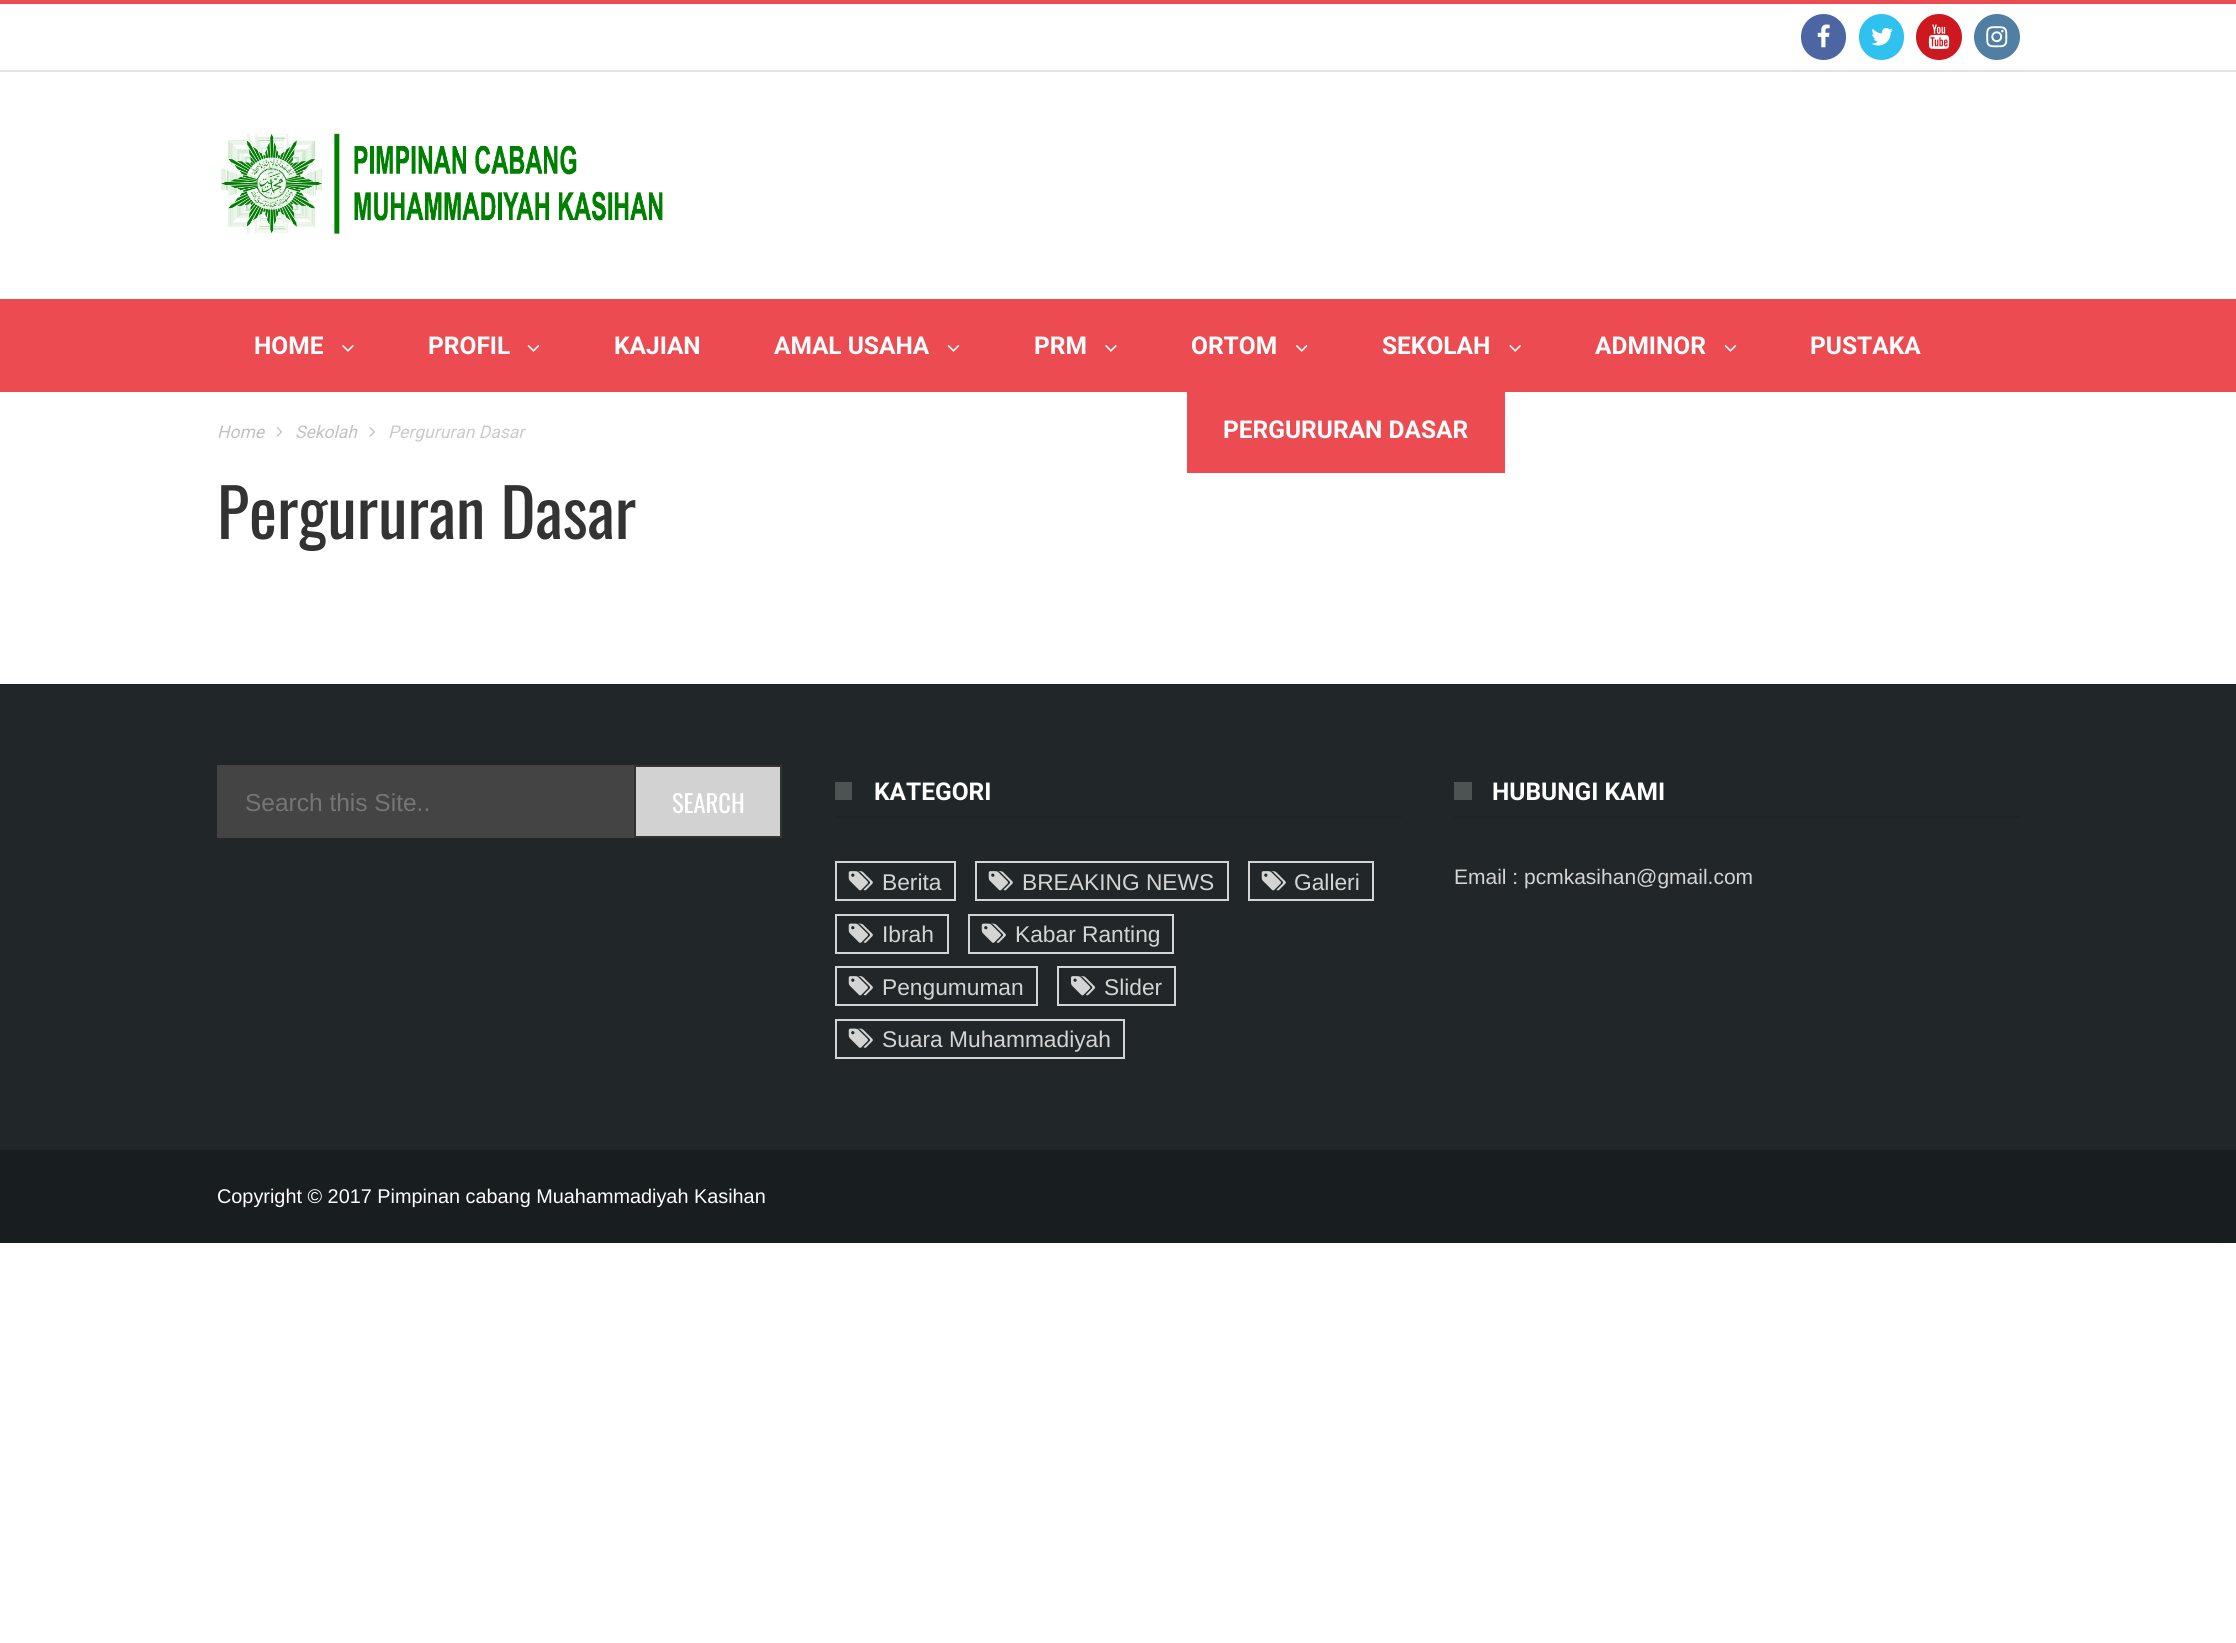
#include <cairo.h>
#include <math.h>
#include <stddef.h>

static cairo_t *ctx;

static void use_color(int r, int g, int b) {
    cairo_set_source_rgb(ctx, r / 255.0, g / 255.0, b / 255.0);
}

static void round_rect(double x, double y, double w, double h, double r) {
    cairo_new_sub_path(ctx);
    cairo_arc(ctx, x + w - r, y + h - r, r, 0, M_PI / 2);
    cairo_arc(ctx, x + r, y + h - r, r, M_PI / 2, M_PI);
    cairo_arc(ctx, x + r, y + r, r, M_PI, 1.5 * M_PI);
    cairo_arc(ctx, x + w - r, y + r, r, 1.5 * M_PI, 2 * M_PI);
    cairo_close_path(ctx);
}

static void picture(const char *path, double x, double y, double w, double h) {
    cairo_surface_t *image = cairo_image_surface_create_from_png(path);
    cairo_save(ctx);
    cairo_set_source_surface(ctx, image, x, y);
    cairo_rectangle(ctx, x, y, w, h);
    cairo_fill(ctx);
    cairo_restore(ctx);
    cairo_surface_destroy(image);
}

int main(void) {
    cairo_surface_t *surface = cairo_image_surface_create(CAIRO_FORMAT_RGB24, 2236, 1643);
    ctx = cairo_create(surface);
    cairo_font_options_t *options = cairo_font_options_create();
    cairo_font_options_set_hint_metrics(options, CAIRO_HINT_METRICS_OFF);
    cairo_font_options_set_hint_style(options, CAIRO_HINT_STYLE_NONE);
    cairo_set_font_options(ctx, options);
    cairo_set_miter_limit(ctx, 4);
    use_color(255, 255, 255);
    cairo_paint(ctx);
    use_color(236, 76, 81);
    cairo_rectangle(ctx, 0, 0, 2236, 4);
    cairo_fill(ctx);
    use_color(226, 226, 226);
    cairo_rectangle(ctx, 0, 70, 2236, 2);
    cairo_fill(ctx);
    use_color(76, 102, 164);
    round_rect(1801, 14, 45, 46, 22.5);
    cairo_fill(ctx);
    picture("img1.png", 1817, 24, 13, 24);
    use_color(47, 194, 239);
    round_rect(1859, 14, 45, 46, 22.5);
    cairo_fill(ctx);
    picture("img2.png", 1871, 28, 22, 18);
    use_color(204, 24, 30);
    cairo_arc(ctx, 1939, 37, 23, 0, 2 * M_PI);
    cairo_fill(ctx);
    picture("img3.png", 1928, 24, 22, 25);
    use_color(81, 127, 164);
    cairo_arc(ctx, 1997, 37, 23, 0, 2 * M_PI);
    cairo_fill(ctx);
    picture("img4.png", 1986, 26, 22, 22);
    picture("img5.png", 221, 133, 442, 101);
    use_color(236, 76, 81);
    cairo_rectangle(ctx, 0, 299, 2236, 93);
    cairo_fill(ctx);
    cairo_select_font_face(ctx, "Roboto", CAIRO_FONT_SLANT_NORMAL, CAIRO_FONT_WEIGHT_BOLD);
    cairo_set_font_size(ctx, 24.5);
    use_color(255, 255, 255);
    cairo_move_to(ctx, 254, 354);
    cairo_show_text(ctx, "HOME");
    picture("img6.png", 342, 345, 12, 7);
    cairo_move_to(ctx, 428, 354);
    cairo_show_text(ctx, "PROFIL");
    picture("img7.png", 527, 345, 13, 7);
    cairo_move_to(ctx, 614, 354);
    cairo_show_text(ctx, "KAJIAN");
    cairo_move_to(ctx, 774, 354);
    cairo_show_text(ctx, "AMAL USAHA");
    picture("img7.png", 947, 345, 13, 7);
    cairo_move_to(ctx, 1034, 354);
    cairo_show_text(ctx, "PRM");
    picture("img6.png", 1105, 345, 12, 7);
    cairo_move_to(ctx, 1191, 354);
    cairo_show_text(ctx, "ORTOM");
    picture("img8.png", 1296, 345, 12, 7);
    cairo_move_to(ctx, 1382, 354);
    cairo_show_text(ctx, "SEKOLAH");
    picture("img9.png", 1509, 345, 12, 7);
    cairo_move_to(ctx, 1595, 354);
    cairo_show_text(ctx, "ADMINOR");
    picture("img7.png", 1724, 345, 13, 7);
    cairo_move_to(ctx, 1810, 354);
    cairo_show_text(ctx, "PUSTAKA");
    use_color(236, 76, 81);
    cairo_rectangle(ctx, 1187, 392, 318, 81);
    cairo_fill(ctx);
    use_color(255, 255, 255);
    cairo_move_to(ctx, 1223, 438);
    cairo_show_text(ctx, "PERGURURAN DASAR");
    cairo_select_font_face(ctx, "Roboto", CAIRO_FONT_SLANT_ITALIC, CAIRO_FONT_WEIGHT_NORMAL);
    cairo_set_font_size(ctx, 17.5);
    use_color(194, 194, 194);
    cairo_move_to(ctx, 217, 438);
    cairo_show_text(ctx, "Home");
    picture("img10.png", 276, 427, 7, 10);
    cairo_move_to(ctx, 295, 438);
    cairo_show_text(ctx, "Sekolah");
    picture("img11.png", 369, 427, 6, 10);
    use_color(203, 203, 203);
    cairo_move_to(ctx, 388, 438);
    cairo_show_text(ctx, "Pergururan Dasar");
    cairo_select_font_face(ctx, "Oswald", CAIRO_FONT_SLANT_NORMAL, CAIRO_FONT_WEIGHT_NORMAL);
    cairo_set_font_size(ctx, 66.5);
    use_color(51, 51, 51);
    cairo_move_to(ctx, 217, 539);
    cairo_show_text(ctx, "Pergururan Dasar");
    use_color(33, 39, 40);
    cairo_rectangle(ctx, 0, 686, 2236, 464);
    cairo_fill(ctx);
    use_color(30, 35, 36);
    cairo_rectangle(ctx, 0, 684, 2236, 2);
    cairo_fill(ctx);
    use_color(68, 68, 68);
    cairo_rectangle(ctx, 217, 765, 417, 73);
    cairo_fill(ctx);
    cairo_select_font_face(ctx, "Liberation Sans", CAIRO_FONT_SLANT_NORMAL, CAIRO_FONT_WEIGHT_NORMAL);
    cairo_set_font_size(ctx, 24.5);
    use_color(117, 117, 117);
    cairo_move_to(ctx, 245, 811);
    cairo_show_text(ctx, "Search this Site..");
    use_color(210, 210, 210);
    cairo_rectangle(ctx, 635, 766, 146, 71);
    cairo_fill_preserve(ctx);
    use_color(51, 51, 51);
    cairo_stroke(ctx);
    cairo_select_font_face(ctx, "Oswald", CAIRO_FONT_SLANT_NORMAL, CAIRO_FONT_WEIGHT_NORMAL);
    use_color(255, 255, 255);
    cairo_move_to(ctx, 672, 813);
    cairo_show_text(ctx, "SEARCH");
    use_color(30, 36, 37);
    cairo_rectangle(ctx, 835, 816, 567, 2);
    cairo_fill(ctx);
    use_color(77, 82, 83);
    cairo_rectangle(ctx, 835, 782, 17, 18);
    cairo_fill(ctx);
    cairo_select_font_face(ctx, "Roboto", CAIRO_FONT_SLANT_NORMAL, CAIRO_FONT_WEIGHT_BOLD);
    use_color(255, 255, 255);
    cairo_move_to(ctx, 874, 800);
    cairo_show_text(ctx, "KATEGORI");
    cairo_rectangle(ctx, 836, 862, 119, 38);
    use_color(211, 212, 212);
    cairo_stroke(ctx);
    picture("img12.png", 848, 871, 25, 20);
    cairo_select_font_face(ctx, "Liberation Sans", CAIRO_FONT_SLANT_NORMAL, CAIRO_FONT_WEIGHT_NORMAL);
    cairo_set_font_size(ctx, 22.75);
    cairo_move_to(ctx, 882, 890);
    cairo_show_text(ctx, "Berita");
    cairo_rectangle(ctx, 976, 862, 252, 38);
    cairo_stroke(ctx);
    picture("img13.png", 988, 871, 25, 20);
    cairo_move_to(ctx, 1022, 890);
    cairo_show_text(ctx, "BREAKING NEWS");
    cairo_rectangle(ctx, 1249, 862, 124, 38);
    cairo_stroke(ctx);
    picture("img12.png", 1261, 871, 25, 20);
    cairo_move_to(ctx, 1294, 890);
    cairo_show_text(ctx, "Galleri");
    cairo_rectangle(ctx, 836, 915, 112, 38);
    cairo_stroke(ctx);
    picture("img14.png", 848, 923, 25, 20);
    cairo_move_to(ctx, 882, 942);
    cairo_show_text(ctx, "Ibrah");
    cairo_rectangle(ctx, 969, 915, 204, 38);
    cairo_stroke(ctx);
    picture("img15.png", 981, 923, 25, 20);
    cairo_move_to(ctx, 1015, 942);
    cairo_show_text(ctx, "Kabar Ranting");
    cairo_rectangle(ctx, 836, 967, 201, 38);
    cairo_stroke(ctx);
    picture("img12.png", 848, 976, 25, 20);
    cairo_move_to(ctx, 882, 995);
    cairo_show_text(ctx, "Pengumuman");
    cairo_rectangle(ctx, 1058, 967, 117, 38);
    cairo_stroke(ctx);
    picture("img16.png", 1071, 976, 25, 20);
    cairo_move_to(ctx, 1104, 995);
    cairo_show_text(ctx, "Slider");
    cairo_rectangle(ctx, 836, 1020, 288, 38);
    cairo_stroke(ctx);
    picture("img14.png", 848, 1028, 25, 20);
    cairo_move_to(ctx, 882, 1047);
    cairo_show_text(ctx, "Suara Muhammadiyah");
    use_color(30, 36, 37);
    cairo_rectangle(ctx, 1454, 816, 566, 2);
    cairo_fill(ctx);
    use_color(77, 82, 83);
    cairo_rectangle(ctx, 1454, 782, 18, 18);
    cairo_fill(ctx);
    cairo_select_font_face(ctx, "Roboto", CAIRO_FONT_SLANT_NORMAL, CAIRO_FONT_WEIGHT_BOLD);
    cairo_set_font_size(ctx, 24.5);
    use_color(255, 255, 255);
    cairo_move_to(ctx, 1492, 800);
    cairo_show_text(ctx, "HUBUNGI KAMI");
    cairo_select_font_face(ctx, "Liberation Sans", CAIRO_FONT_SLANT_NORMAL, CAIRO_FONT_WEIGHT_NORMAL);
    cairo_set_font_size(ctx, 21);
    use_color(211, 212, 212);
    cairo_move_to(ctx, 1454, 884);
    cairo_show_text(ctx, "Email : pcmkasihan@gmail.com");
    use_color(24, 29, 31);
    cairo_rectangle(ctx, 0, 1150, 2236, 93);
    cairo_fill(ctx);
    cairo_set_font_size(ctx, 19.85);
    use_color(255, 255, 255);
    cairo_move_to(ctx, 217, 1203);
    cairo_show_text(ctx, "Copyright © 2017 Pimpinan cabang Muahammadiyah Kasihan");
    cairo_surface_write_to_png(surface, "result.png");
    cairo_font_options_destroy(options);
    cairo_destroy(ctx);
    cairo_surface_destroy(surface);
    return 0;
}
